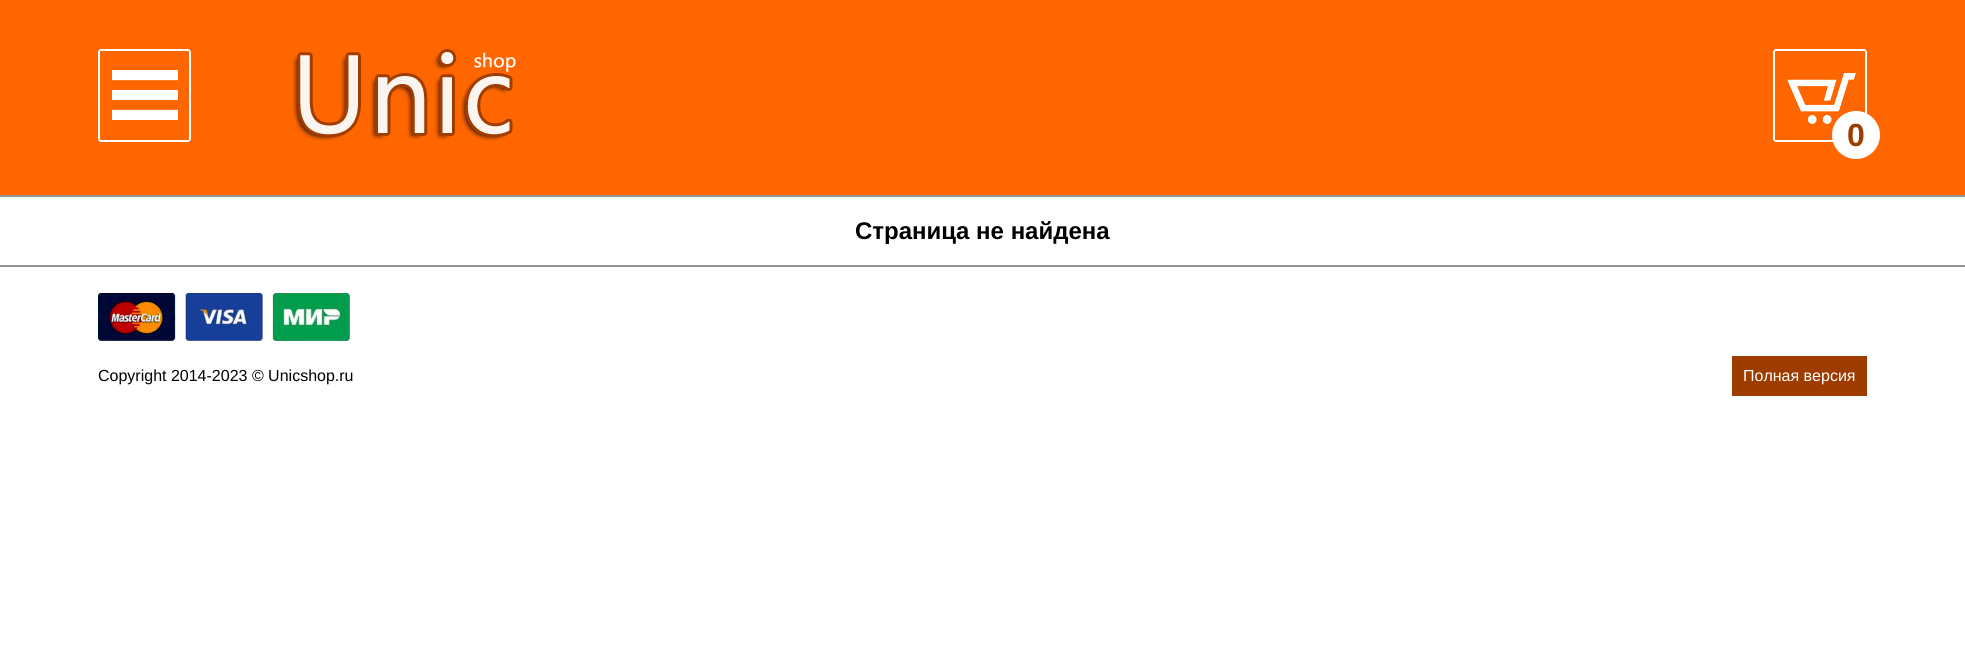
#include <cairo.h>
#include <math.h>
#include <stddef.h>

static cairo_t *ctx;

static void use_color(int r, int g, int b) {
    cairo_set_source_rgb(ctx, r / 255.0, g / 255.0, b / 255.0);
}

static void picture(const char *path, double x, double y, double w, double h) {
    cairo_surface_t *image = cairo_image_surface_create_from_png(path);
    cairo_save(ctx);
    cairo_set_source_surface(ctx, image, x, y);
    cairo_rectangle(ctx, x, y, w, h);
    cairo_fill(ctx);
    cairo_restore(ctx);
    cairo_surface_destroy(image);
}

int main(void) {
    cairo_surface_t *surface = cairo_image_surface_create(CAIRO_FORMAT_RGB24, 1965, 654);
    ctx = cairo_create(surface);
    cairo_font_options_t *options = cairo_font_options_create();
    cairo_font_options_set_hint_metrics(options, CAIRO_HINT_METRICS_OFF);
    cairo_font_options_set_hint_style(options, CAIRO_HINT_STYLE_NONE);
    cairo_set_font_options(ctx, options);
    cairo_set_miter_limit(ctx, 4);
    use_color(255, 255, 255);
    cairo_paint(ctx);
    use_color(255, 102, 0);
    cairo_rectangle(ctx, 0, 0, 1965, 195);
    cairo_fill(ctx);
    use_color(147, 148, 150);
    cairo_rectangle(ctx, 0, 195, 1965, 2);
    cairo_fill(ctx);
    picture("img1.png", 98, 49, 93, 93);
    picture("img2.png", 292, 49, 224, 92);
    picture("img3.png", 1773, 49, 94, 93);
    use_color(255, 255, 255);
    cairo_arc(ctx, 1856, 135, 24, 0, 2 * M_PI);
    cairo_fill(ctx);
    cairo_select_font_face(ctx, "Liberation Sans", CAIRO_FONT_SLANT_NORMAL, CAIRO_FONT_WEIGHT_BOLD);
    cairo_set_font_size(ctx, 32);
    use_color(158, 60, 0);
    cairo_move_to(ctx, 1847, 146);
    cairo_show_text(ctx, "0");
    cairo_set_font_size(ctx, 24);
    use_color(0, 0, 0);
    cairo_move_to(ctx, 855, 239);
    cairo_show_text(ctx, "Страница не найдена");
    use_color(147, 148, 150);
    cairo_rectangle(ctx, 0, 265, 1965, 2);
    cairo_fill(ctx);
    picture("img4.png", 98, 293, 252, 48);
    cairo_select_font_face(ctx, "Liberation Sans", CAIRO_FONT_SLANT_NORMAL, CAIRO_FONT_WEIGHT_NORMAL);
    cairo_set_font_size(ctx, 16);
    use_color(0, 0, 0);
    cairo_move_to(ctx, 98, 381);
    cairo_show_text(ctx, "Copyright 2014-2023 © Unicshop.ru");
    use_color(158, 60, 0);
    cairo_rectangle(ctx, 1732, 356, 135, 40);
    cairo_fill(ctx);
    use_color(255, 255, 255);
    cairo_move_to(ctx, 1743, 381);
    cairo_show_text(ctx, "Полная версия");
    cairo_surface_write_to_png(surface, "result.png");
    cairo_font_options_destroy(options);
    cairo_destroy(ctx);
    cairo_surface_destroy(surface);
    return 0;
}
